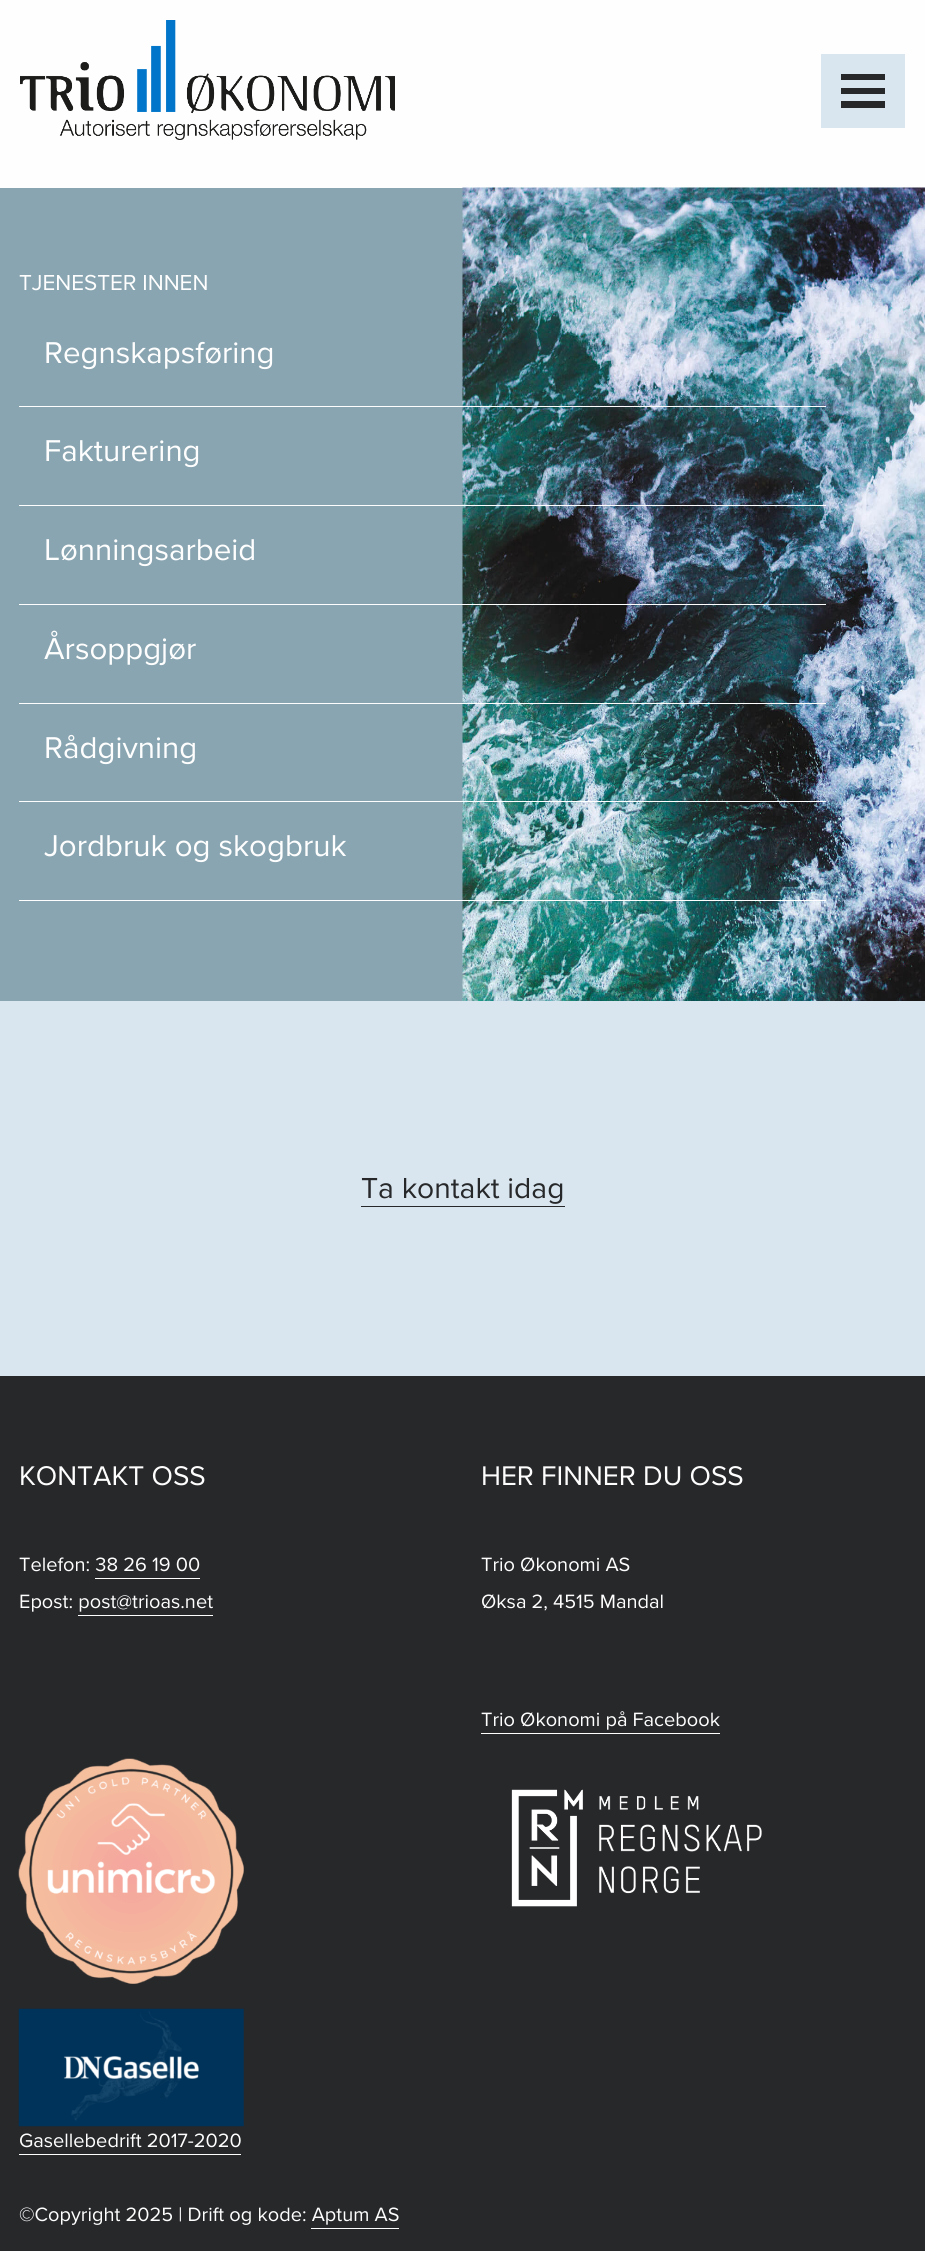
#include <cairo.h>
#include <math.h>
#include <stddef.h>

static cairo_t *ctx;

static void use_color(int r, int g, int b) {
    cairo_set_source_rgb(ctx, r / 255.0, g / 255.0, b / 255.0);
}

static void picture(const char *path, double x, double y, double w, double h) {
    cairo_surface_t *image = cairo_image_surface_create_from_png(path);
    cairo_save(ctx);
    cairo_set_source_surface(ctx, image, x, y);
    cairo_rectangle(ctx, x, y, w, h);
    cairo_fill(ctx);
    cairo_restore(ctx);
    cairo_surface_destroy(image);
}

int main(void) {
    cairo_surface_t *surface = cairo_image_surface_create(CAIRO_FORMAT_RGB24, 925, 2251);
    ctx = cairo_create(surface);
    cairo_font_options_t *options = cairo_font_options_create();
    cairo_font_options_set_hint_metrics(options, CAIRO_HINT_METRICS_OFF);
    cairo_font_options_set_hint_style(options, CAIRO_HINT_STYLE_NONE);
    cairo_set_font_options(ctx, options);
    cairo_set_miter_limit(ctx, 4);
    use_color(254, 254, 254);
    cairo_paint(ctx);
    picture("img1.png", 20, 20, 375, 120);
    use_color(217, 230, 239);
    cairo_rectangle(ctx, 821, 54, 84, 74);
    cairo_fill(ctx);
    use_color(39, 40, 42);
    cairo_rectangle(ctx, 841, 74, 44, 6);
    cairo_fill(ctx);
    cairo_rectangle(ctx, 841, 88, 44, 6);
    cairo_fill(ctx);
    cairo_rectangle(ctx, 841, 101, 44, 7);
    cairo_fill(ctx);
    use_color(137, 165, 177);
    cairo_rectangle(ctx, 0, 188, 463, 813);
    cairo_fill(ctx);
    picture("img2.png", 462, 187, 463, 814);
    cairo_select_font_face(ctx, "Proxima Nova", CAIRO_FONT_SLANT_NORMAL, CAIRO_FONT_WEIGHT_NORMAL);
    cairo_set_font_size(ctx, 22.5);
    use_color(254, 254, 254);
    cairo_move_to(ctx, 19, 290);
    cairo_show_text(ctx, "TJENESTER INNEN");
    cairo_rectangle(ctx, 19, 406, 807, 1);
    cairo_fill(ctx);
    cairo_set_font_size(ctx, 31.25);
    cairo_move_to(ctx, 44, 363);
    cairo_show_text(ctx, "Regnskapsføring");
    cairo_rectangle(ctx, 19, 505, 807, 1);
    cairo_fill(ctx);
    cairo_move_to(ctx, 44, 461);
    cairo_show_text(ctx, "Fakturering");
    cairo_rectangle(ctx, 19, 604, 807, 1);
    cairo_fill(ctx);
    cairo_move_to(ctx, 44, 560);
    cairo_show_text(ctx, "Lønningsarbeid");
    cairo_rectangle(ctx, 19, 703, 807, 1);
    cairo_fill(ctx);
    cairo_move_to(ctx, 44, 659);
    cairo_show_text(ctx, "Årsoppgjør");
    cairo_rectangle(ctx, 19, 801, 807, 1);
    cairo_fill(ctx);
    cairo_move_to(ctx, 44, 758);
    cairo_show_text(ctx, "Rådgivning");
    cairo_rectangle(ctx, 19, 900, 807, 1);
    cairo_fill(ctx);
    cairo_move_to(ctx, 44, 856);
    cairo_show_text(ctx, "Jordbruk og skogbruk");
    use_color(217, 230, 239);
    cairo_rectangle(ctx, 0, 1001, 925, 375);
    cairo_fill(ctx);
    cairo_set_font_size(ctx, 30);
    use_color(39, 40, 42);
    cairo_move_to(ctx, 361, 1198);
    cairo_show_text(ctx, "Ta kontakt idag");
    cairo_rectangle(ctx, 361, 1206, 204, 1);
    cairo_fill(ctx);
    cairo_rectangle(ctx, 0, 1376, 925, 875);
    cairo_fill(ctx);
    cairo_set_font_size(ctx, 28);
    use_color(254, 254, 254);
    cairo_move_to(ctx, 19, 1485);
    cairo_show_text(ctx, "KONTAKT OSS");
    cairo_set_font_size(ctx, 20);
    cairo_move_to(ctx, 19, 1571);
    cairo_show_text(ctx, "Telefon: 38 26 19 00");
    cairo_rectangle(ctx, 95, 1578, 105, 1);
    cairo_fill(ctx);
    cairo_move_to(ctx, 19, 1608);
    cairo_show_text(ctx, "Epost: post@trioas.net");
    cairo_rectangle(ctx, 78, 1615, 135, 1);
    cairo_fill(ctx);
    cairo_set_font_size(ctx, 28);
    cairo_move_to(ctx, 481, 1485);
    cairo_show_text(ctx, "HER FINNER DU OSS");
    cairo_set_font_size(ctx, 20);
    cairo_move_to(ctx, 481, 1571);
    cairo_show_text(ctx, "Trio Økonomi AS");
    cairo_move_to(ctx, 481, 1608);
    cairo_show_text(ctx, "Øksa 2, 4515 Mandal");
    cairo_move_to(ctx, 481, 1726);
    cairo_show_text(ctx, "Trio Økonomi på Facebook");
    cairo_rectangle(ctx, 481, 1733, 239, 1);
    cairo_fill(ctx);
    picture("img3.png", 511, 1789, 251, 118);
    picture("img4.png", 18, 1758, 226, 226);
    picture("img5.png", 18, 2008, 226, 119);
    cairo_move_to(ctx, 19, 2147);
    cairo_show_text(ctx, "Gasellebedrift 2017-2020");
    cairo_rectangle(ctx, 19, 2154, 222, 1);
    cairo_fill(ctx);
    cairo_move_to(ctx, 19, 2221);
    cairo_show_text(ctx, "©Copyright 2025 | Drift og kode: Aptum AS");
    cairo_rectangle(ctx, 311, 2228, 88, 1);
    cairo_fill(ctx);
    cairo_surface_write_to_png(surface, "result.png");
    cairo_font_options_destroy(options);
    cairo_destroy(ctx);
    cairo_surface_destroy(surface);
    return 0;
}
